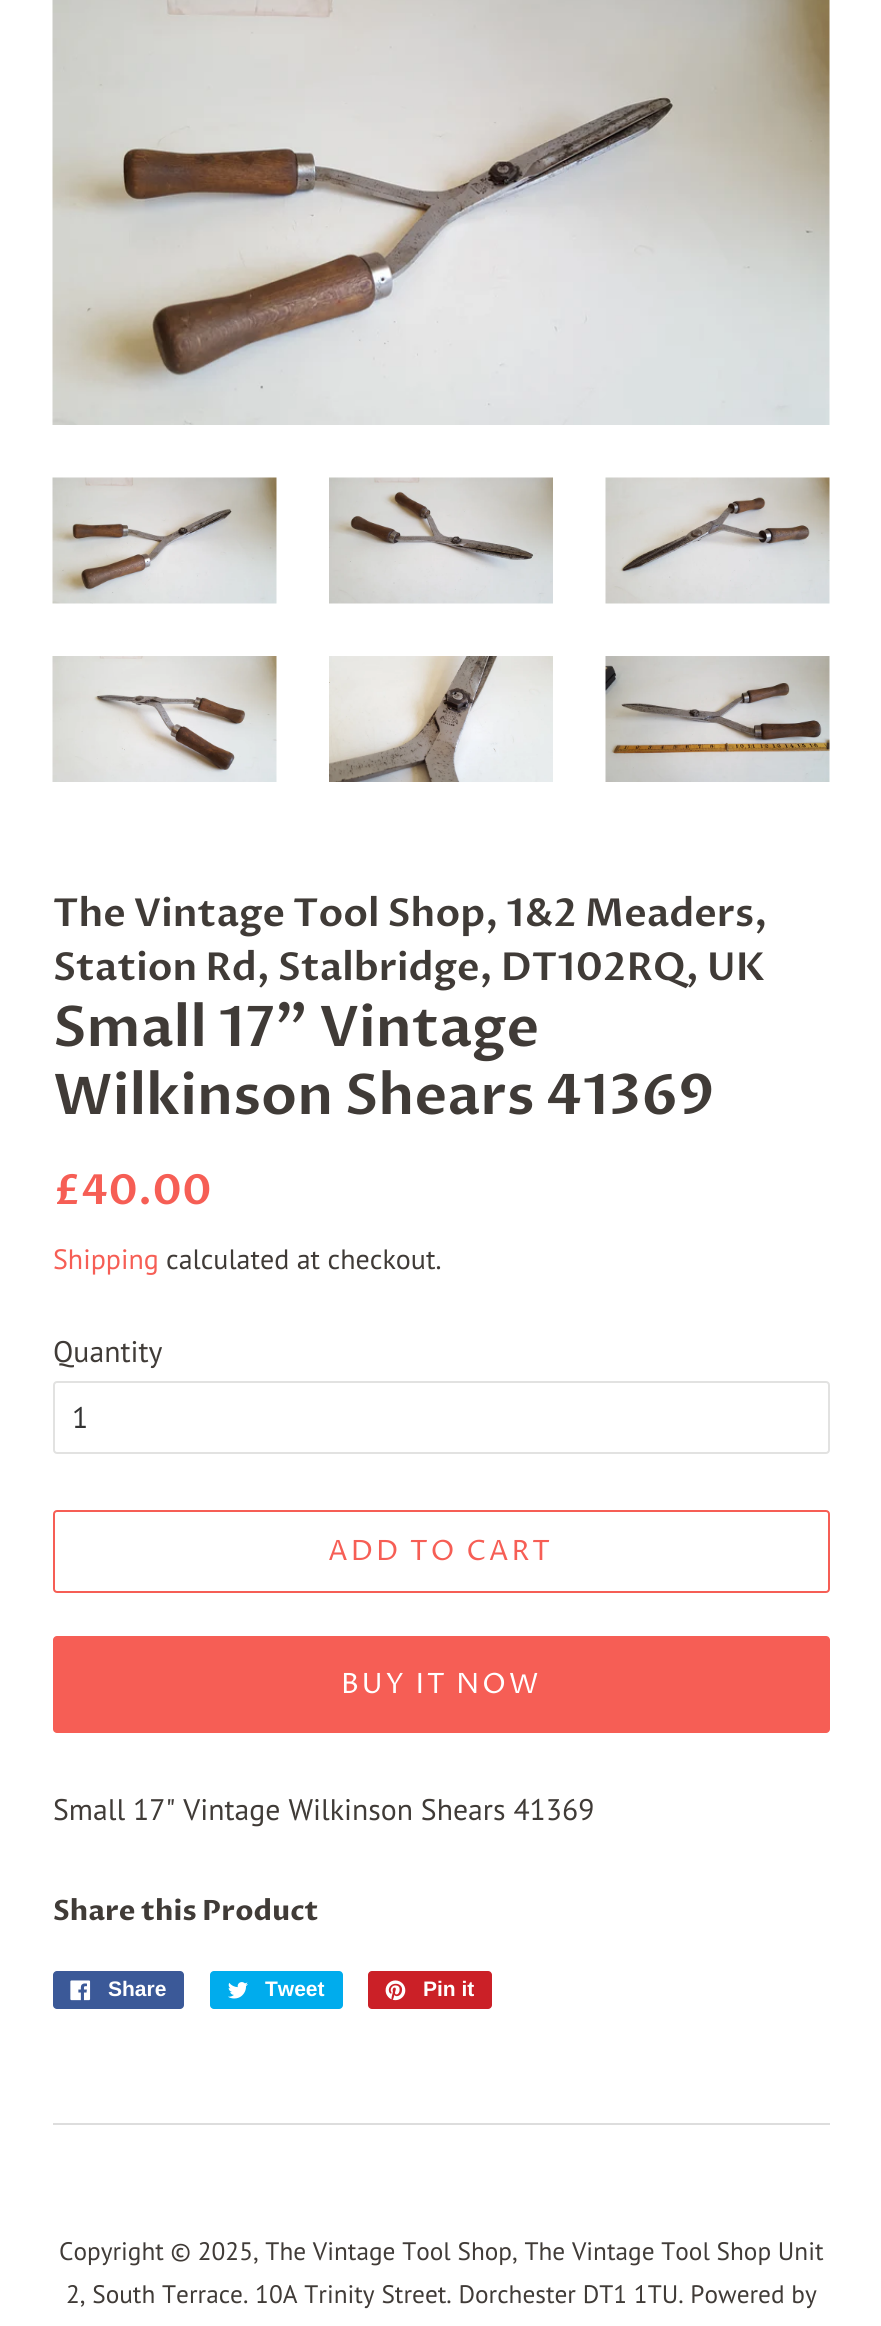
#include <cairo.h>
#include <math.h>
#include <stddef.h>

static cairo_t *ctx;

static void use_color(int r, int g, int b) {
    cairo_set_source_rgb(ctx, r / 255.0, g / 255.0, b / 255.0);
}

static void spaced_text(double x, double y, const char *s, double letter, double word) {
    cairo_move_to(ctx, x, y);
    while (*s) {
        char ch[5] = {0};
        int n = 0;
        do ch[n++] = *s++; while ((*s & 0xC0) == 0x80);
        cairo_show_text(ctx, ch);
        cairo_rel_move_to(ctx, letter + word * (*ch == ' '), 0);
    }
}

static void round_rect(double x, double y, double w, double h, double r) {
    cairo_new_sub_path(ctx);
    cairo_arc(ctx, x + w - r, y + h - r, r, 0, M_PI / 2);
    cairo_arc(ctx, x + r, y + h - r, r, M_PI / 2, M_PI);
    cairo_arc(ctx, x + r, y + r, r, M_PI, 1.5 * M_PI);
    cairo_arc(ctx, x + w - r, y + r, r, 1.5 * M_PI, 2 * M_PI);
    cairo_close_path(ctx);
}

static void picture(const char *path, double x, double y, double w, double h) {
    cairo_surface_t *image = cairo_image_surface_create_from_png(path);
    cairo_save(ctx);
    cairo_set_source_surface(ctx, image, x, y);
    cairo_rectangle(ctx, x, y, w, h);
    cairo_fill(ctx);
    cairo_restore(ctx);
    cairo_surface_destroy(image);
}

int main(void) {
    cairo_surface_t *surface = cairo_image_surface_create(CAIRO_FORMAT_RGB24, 881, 2326);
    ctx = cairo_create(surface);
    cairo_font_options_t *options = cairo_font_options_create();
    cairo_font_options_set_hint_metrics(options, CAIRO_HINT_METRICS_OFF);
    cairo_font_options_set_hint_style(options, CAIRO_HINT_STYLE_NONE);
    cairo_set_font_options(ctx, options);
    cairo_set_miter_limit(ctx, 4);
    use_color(255, 255, 255);
    cairo_paint(ctx);
    picture("img1.png", 52, 0, 778, 425);
    picture("img2.png", 52, 477, 225, 127);
    picture("img3.png", 329, 477, 224, 127);
    picture("img4.png", 605, 477, 225, 127);
    picture("img5.png", 52, 656, 225, 126);
    picture("img6.png", 329, 656, 224, 126);
    picture("img7.png", 605, 656, 225, 126);
    cairo_select_font_face(ctx, "Proza Libre SemiBold", CAIRO_FONT_SLANT_NORMAL, CAIRO_FONT_WEIGHT_NORMAL);
    cairo_set_font_size(ctx, 38.5);
    use_color(64, 59, 55);
    cairo_move_to(ctx, 53, 926);
    cairo_show_text(ctx, "The Vintage Tool Shop, 1&2 Meaders,");
    cairo_move_to(ctx, 53, 980);
    cairo_show_text(ctx, "Station Rd, Stalbridge, DT102RQ, UK");
    cairo_set_font_size(ctx, 56);
    cairo_move_to(ctx, 53, 1046);
    cairo_show_text(ctx, "Small 17\" Vintage");
    cairo_move_to(ctx, 53, 1114);
    cairo_show_text(ctx, "Wilkinson Shears 41369");
    cairo_set_font_size(ctx, 41.5);
    use_color(246, 94, 85);
    cairo_move_to(ctx, 53, 1204);
    cairo_show_text(ctx, "£40.00");
    cairo_select_font_face(ctx, "PT Sans", CAIRO_FONT_SLANT_NORMAL, CAIRO_FONT_WEIGHT_NORMAL);
    cairo_set_font_size(ctx, 28);
    cairo_move_to(ctx, 53, 1269);
    cairo_show_text(ctx, "Shipping");
    use_color(64, 59, 55);
    cairo_move_to(ctx, 166, 1269);
    cairo_show_text(ctx, "calculated at checkout.");
    cairo_set_font_size(ctx, 29.75);
    cairo_move_to(ctx, 53, 1362);
    cairo_show_text(ctx, "Quantity");
    round_rect(54, 1382, 775, 71, 3);
    use_color(226, 226, 225);
    cairo_stroke(ctx);
    use_color(51, 51, 51);
    cairo_move_to(ctx, 72, 1428);
    cairo_show_text(ctx, "1");
    round_rect(54, 1511, 775, 81, 3);
    use_color(246, 94, 85);
    cairo_stroke(ctx);
    cairo_select_font_face(ctx, "Proza Libre", CAIRO_FONT_SLANT_NORMAL, CAIRO_FONT_WEIGHT_NORMAL);
    cairo_set_font_size(ctx, 28);
    spaced_text(328, 1560, "ADD TO CART", 2.75, 0);
    round_rect(53, 1636, 777, 97, 4);
    cairo_fill(ctx);
    use_color(255, 255, 255);
    spaced_text(341, 1693, "BUY IT NOW", 2.75, 0);
    cairo_select_font_face(ctx, "PT Sans", CAIRO_FONT_SLANT_NORMAL, CAIRO_FONT_WEIGHT_NORMAL);
    cairo_set_font_size(ctx, 29.75);
    use_color(64, 59, 55);
    cairo_move_to(ctx, 53, 1820);
    cairo_show_text(ctx, "Small 17\" Vintage Wilkinson Shears 41369");
    cairo_select_font_face(ctx, "Proza Libre", CAIRO_FONT_SLANT_NORMAL, CAIRO_FONT_WEIGHT_BOLD);
    cairo_set_font_size(ctx, 28);
    cairo_move_to(ctx, 53, 1920);
    cairo_show_text(ctx, "Share this Product");
    use_color(59, 89, 152);
    round_rect(53, 1971, 131, 38, 4);
    cairo_fill(ctx);
    picture("img8.png", 70, 1980, 21, 21);
    cairo_select_font_face(ctx, "Liberation Sans", CAIRO_FONT_SLANT_NORMAL, CAIRO_FONT_WEIGHT_BOLD);
    cairo_set_font_size(ctx, 21);
    use_color(255, 255, 255);
    cairo_move_to(ctx, 108, 1996);
    cairo_show_text(ctx, "Share");
    use_color(0, 172, 237);
    round_rect(210, 1971, 133, 38, 4);
    cairo_fill(ctx);
    picture("img9.png", 228, 1982, 20, 17);
    use_color(255, 255, 255);
    cairo_move_to(ctx, 265, 1996);
    cairo_show_text(ctx, "Tweet");
    use_color(203, 32, 39);
    round_rect(368, 1971, 124, 38, 4);
    cairo_fill(ctx);
    picture("img10.png", 385, 1980, 21, 21);
    use_color(255, 255, 255);
    cairo_move_to(ctx, 423, 1996);
    cairo_show_text(ctx, "Pin it");
    use_color(221, 221, 221);
    cairo_rectangle(ctx, 53, 2123, 777, 2);
    cairo_fill(ctx);
    cairo_select_font_face(ctx, "PT Sans", CAIRO_FONT_SLANT_NORMAL, CAIRO_FONT_WEIGHT_NORMAL);
    cairo_set_font_size(ctx, 25.3);
    use_color(64, 59, 55);
    cairo_move_to(ctx, 59, 2260);
    cairo_show_text(ctx, "Copyright © 2025, The Vintage Tool Shop, The Vintage Tool Shop Unit");
    cairo_move_to(ctx, 66, 2303);
    cairo_show_text(ctx, "2, South Terrace. 10A Trinity Street. Dorchester DT1 1TU. Powered by");
    cairo_surface_write_to_png(surface, "result.png");
    cairo_font_options_destroy(options);
    cairo_destroy(ctx);
    cairo_surface_destroy(surface);
    return 0;
}
